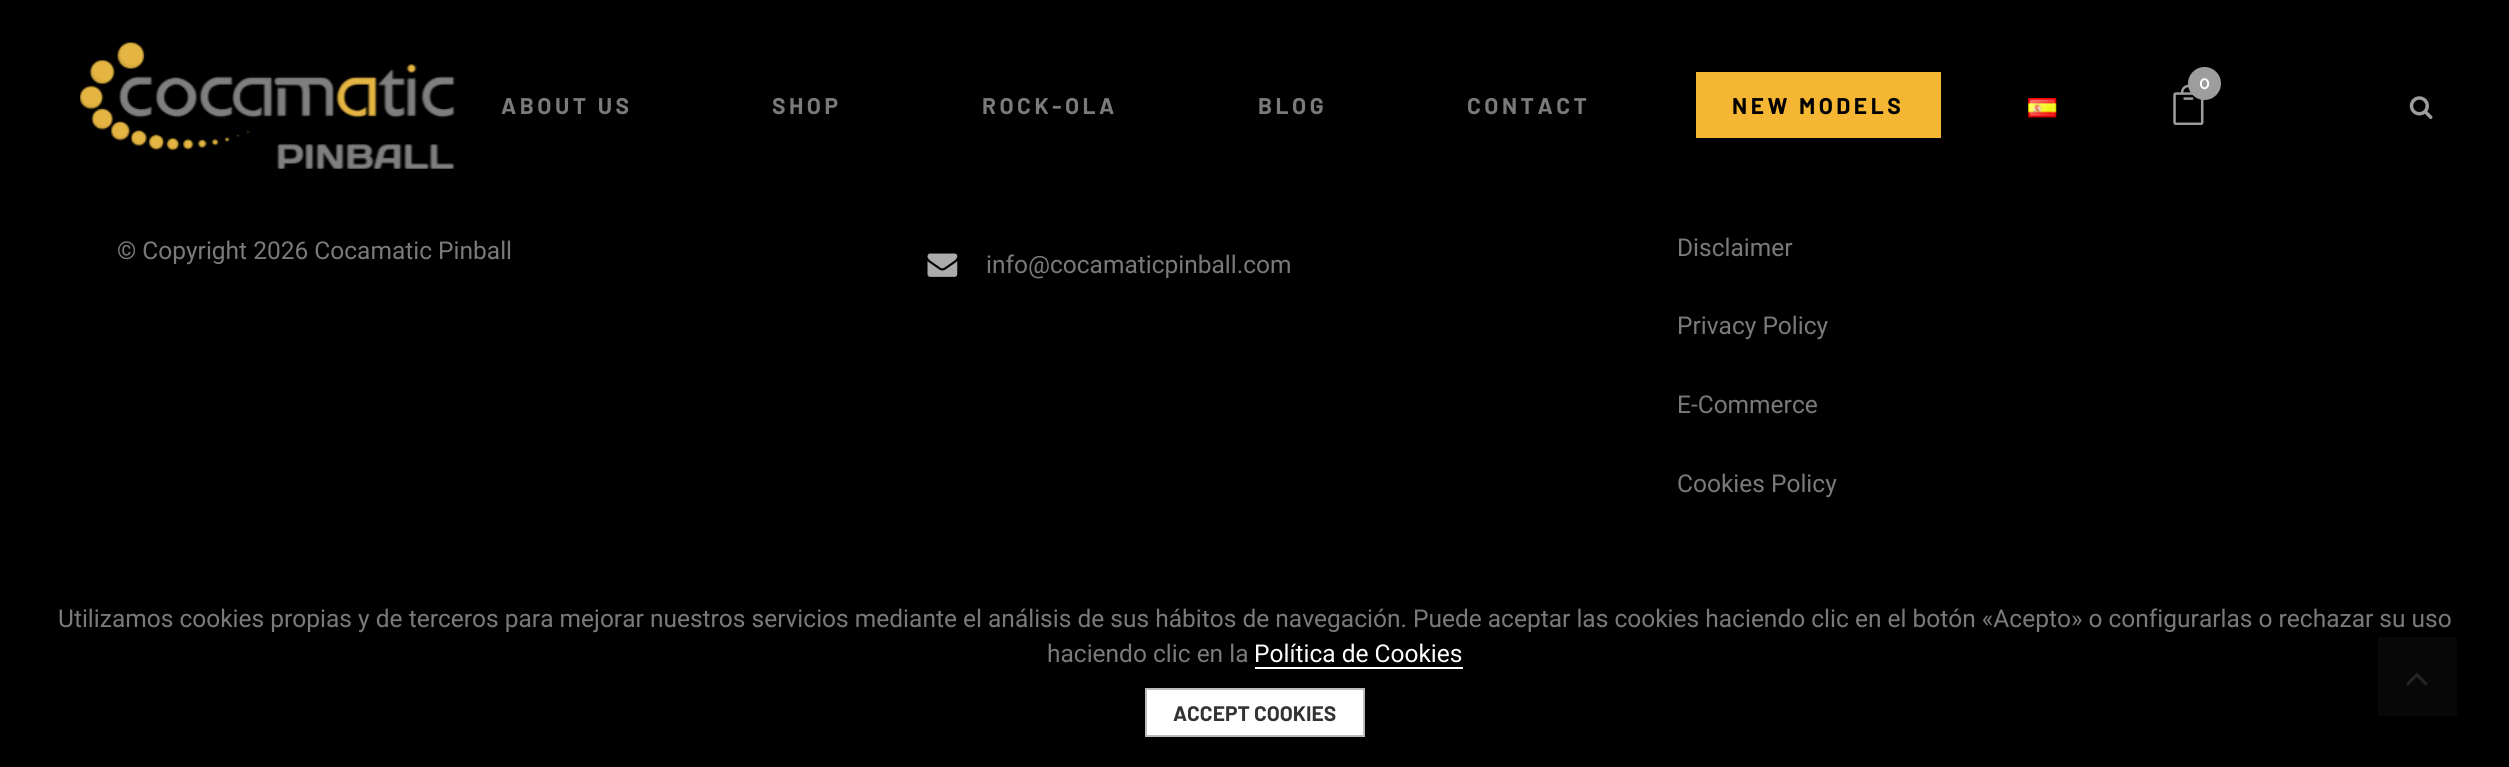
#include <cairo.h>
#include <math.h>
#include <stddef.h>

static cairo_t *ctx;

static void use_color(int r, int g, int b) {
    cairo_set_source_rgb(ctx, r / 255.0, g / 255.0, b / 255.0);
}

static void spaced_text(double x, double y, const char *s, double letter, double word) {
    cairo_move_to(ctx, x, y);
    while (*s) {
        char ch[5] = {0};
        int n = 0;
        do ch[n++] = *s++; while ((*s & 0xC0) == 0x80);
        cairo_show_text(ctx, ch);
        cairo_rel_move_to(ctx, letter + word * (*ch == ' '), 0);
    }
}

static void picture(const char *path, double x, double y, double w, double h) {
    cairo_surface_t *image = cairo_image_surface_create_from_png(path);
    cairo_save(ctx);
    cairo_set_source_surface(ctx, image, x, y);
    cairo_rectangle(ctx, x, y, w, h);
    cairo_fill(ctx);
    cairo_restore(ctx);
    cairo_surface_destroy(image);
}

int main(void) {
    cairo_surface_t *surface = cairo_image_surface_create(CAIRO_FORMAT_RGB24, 2509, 767);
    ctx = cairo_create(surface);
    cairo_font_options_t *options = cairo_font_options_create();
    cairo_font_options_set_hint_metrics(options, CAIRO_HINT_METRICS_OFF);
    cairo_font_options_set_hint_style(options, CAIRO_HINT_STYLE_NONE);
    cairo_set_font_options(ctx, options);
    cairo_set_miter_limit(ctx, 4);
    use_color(0, 0, 0);
    cairo_paint(ctx);
    picture("img1.png", 80, 42, 375, 127);
    picture("img2.png", 2173, 84, 31, 41);
    use_color(157, 157, 157);
    cairo_arc(ctx, 2204.5, 83.5, 16.5, 0, 2 * M_PI);
    cairo_fill(ctx);
    cairo_select_font_face(ctx, "Raleway SemiBold", CAIRO_FONT_SLANT_NORMAL, CAIRO_FONT_WEIGHT_NORMAL);
    cairo_set_font_size(ctx, 18);
    use_color(255, 255, 255);
    cairo_move_to(ctx, 2199, 89);
    cairo_show_text(ctx, "0");
    picture("img3.png", 2409, 96, 24, 23);
    cairo_select_font_face(ctx, "Barlow", CAIRO_FONT_SLANT_NORMAL, CAIRO_FONT_WEIGHT_BOLD);
    cairo_set_font_size(ctx, 22.75);
    use_color(122, 122, 122);
    spaced_text(501, 114, "ABOUT US", 3.5, 0);
    spaced_text(772, 114, "SHOP", 3.5, 0);
    spaced_text(982, 114, "ROCK-OLA", 3.5, 0);
    spaced_text(1258, 114, "BLOG", 3.5, 0);
    spaced_text(1467, 114, "CONTACT", 3.5, 0);
    use_color(245, 182, 51);
    cairo_rectangle(ctx, 1696, 72, 245, 66);
    cairo_fill(ctx);
    use_color(0, 0, 0);
    spaced_text(1732, 114, "NEW MODELS", 3.5, 0);
    picture("img4.png", 2028, 98, 29, 20);
    cairo_select_font_face(ctx, "Roboto", CAIRO_FONT_SLANT_NORMAL, CAIRO_FONT_WEIGHT_NORMAL);
    cairo_set_font_size(ctx, 24.5);
    use_color(122, 122, 122);
    cairo_move_to(ctx, 117, 259);
    cairo_show_text(ctx, "© Copyright 2026 Cocamatic Pinball");
    picture("img5.png", 927, 253, 31, 24);
    cairo_move_to(ctx, 986, 273);
    cairo_show_text(ctx, "info@cocamaticpinball.com");
    cairo_move_to(ctx, 1677, 256);
    cairo_show_text(ctx, "Disclaimer");
    cairo_move_to(ctx, 1677, 334);
    cairo_show_text(ctx, "Privacy Policy");
    cairo_move_to(ctx, 1677, 413);
    cairo_show_text(ctx, "E-Commerce");
    cairo_move_to(ctx, 1677, 492);
    cairo_show_text(ctx, "Cookies Policy");
    use_color(53, 53, 53);
    cairo_rectangle(ctx, 2378, 637, 79, 79);
    cairo_fill(ctx);
    picture("img6.png", 2406, 673, 22, 13);
    cairo_set_source_rgba(ctx, 0, 0, 0, 0.85);
    cairo_rectangle(ctx, 2378, 637, 79, 79);
    cairo_fill(ctx);
    use_color(122, 122, 122);
    cairo_move_to(ctx, 58, 627);
    cairo_show_text(ctx, "Utilizamos cookies propias y de terceros para mejorar nuestros servicios mediante el análisis de sus hábitos de navegación. Puede aceptar las cookies haciendo clic en el botón «Acepto» o configurarlas o rechazar su uso");
    cairo_move_to(ctx, 1047, 662);
    cairo_show_text(ctx, "haciendo clic en la");
    use_color(255, 255, 255);
    cairo_move_to(ctx, 1254, 662);
    cairo_show_text(ctx, "Política de Cookies");
    cairo_rectangle(ctx, 1255, 667, 208, 2);
    cairo_fill(ctx);
    cairo_rectangle(ctx, 1146, 689, 218, 47);
    cairo_fill_preserve(ctx);
    use_color(187, 187, 187);
    cairo_stroke(ctx);
    cairo_select_font_face(ctx, "Barlow", CAIRO_FONT_SLANT_NORMAL, CAIRO_FONT_WEIGHT_BOLD);
    cairo_set_font_size(ctx, 21);
    use_color(51, 51, 51);
    cairo_move_to(ctx, 1173, 721);
    cairo_show_text(ctx, "ACCEPT COOKIES");
    cairo_surface_write_to_png(surface, "result.png");
    cairo_font_options_destroy(options);
    cairo_destroy(ctx);
    cairo_surface_destroy(surface);
    return 0;
}
